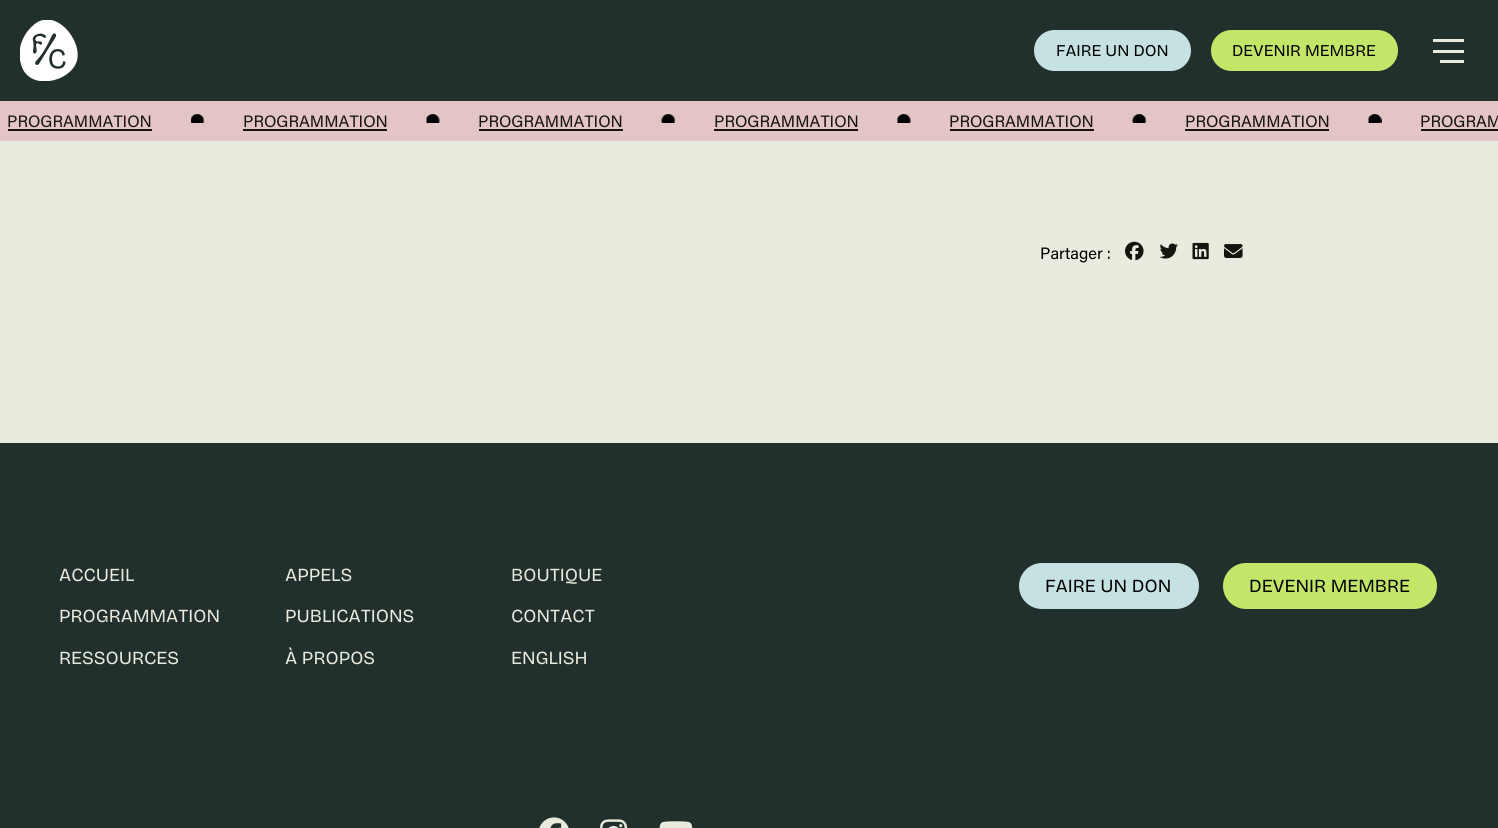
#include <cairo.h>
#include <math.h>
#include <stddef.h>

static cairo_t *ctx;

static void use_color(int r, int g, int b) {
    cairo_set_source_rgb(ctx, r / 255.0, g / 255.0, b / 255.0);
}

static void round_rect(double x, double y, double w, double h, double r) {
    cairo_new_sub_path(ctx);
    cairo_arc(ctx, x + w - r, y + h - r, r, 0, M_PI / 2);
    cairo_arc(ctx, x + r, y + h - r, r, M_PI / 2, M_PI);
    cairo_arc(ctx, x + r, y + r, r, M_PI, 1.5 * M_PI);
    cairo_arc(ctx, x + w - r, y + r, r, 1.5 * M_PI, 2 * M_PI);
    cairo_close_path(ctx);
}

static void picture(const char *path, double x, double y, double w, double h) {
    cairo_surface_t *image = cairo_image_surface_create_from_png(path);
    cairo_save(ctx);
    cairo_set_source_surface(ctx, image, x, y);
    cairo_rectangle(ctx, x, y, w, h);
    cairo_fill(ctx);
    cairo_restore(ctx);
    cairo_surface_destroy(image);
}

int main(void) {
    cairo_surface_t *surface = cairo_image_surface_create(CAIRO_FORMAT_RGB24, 1498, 828);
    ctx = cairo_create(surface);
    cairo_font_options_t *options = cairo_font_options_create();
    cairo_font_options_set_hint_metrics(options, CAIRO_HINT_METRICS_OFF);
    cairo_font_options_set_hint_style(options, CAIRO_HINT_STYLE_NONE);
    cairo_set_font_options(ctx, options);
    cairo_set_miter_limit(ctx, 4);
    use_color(34, 48, 45);
    cairo_paint(ctx);
    picture("img1.png", 20, 20, 58, 61);
    use_color(198, 225, 225);
    round_rect(1035, 31, 155, 39, 19.5);
    cairo_fill_preserve(ctx);
    cairo_stroke(ctx);
    cairo_select_font_face(ctx, "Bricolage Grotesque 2", CAIRO_FONT_SLANT_NORMAL, CAIRO_FONT_WEIGHT_NORMAL);
    cairo_set_font_size(ctx, 16.5);
    use_color(0, 0, 0);
    cairo_move_to(ctx, 1056, 56);
    cairo_show_text(ctx, "FAIRE UN DON");
    use_color(195, 230, 105);
    round_rect(1212, 31, 185, 39, 19.5);
    cairo_fill_preserve(ctx);
    cairo_stroke(ctx);
    use_color(0, 0, 0);
    cairo_move_to(ctx, 1232, 56);
    cairo_show_text(ctx, "DEVENIR MEMBRE");
    use_color(232, 235, 221);
    cairo_rectangle(ctx, 1433, 39, 31, 3);
    cairo_fill(ctx);
    cairo_rectangle(ctx, 1433, 50, 31, 3);
    cairo_fill(ctx);
    cairo_rectangle(ctx, 1440, 60, 24, 3);
    cairo_fill(ctx);
    use_color(228, 197, 198);
    cairo_rectangle(ctx, 0, 101, 1498, 40);
    cairo_fill(ctx);
    cairo_select_font_face(ctx, "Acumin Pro", CAIRO_FONT_SLANT_NORMAL, CAIRO_FONT_WEIGHT_NORMAL);
    use_color(22, 20, 15);
    cairo_move_to(ctx, 7, 127);
    cairo_show_text(ctx, "PROGRAMMATION");
    cairo_rectangle(ctx, 8, 129, 144, 2);
    cairo_fill(ctx);
    picture("img2.png", 191, 114, 14, 9);
    cairo_move_to(ctx, 243, 127);
    cairo_show_text(ctx, "PROGRAMMATION");
    cairo_rectangle(ctx, 243, 129, 144, 2);
    cairo_fill(ctx);
    picture("img3.png", 426, 114, 14, 9);
    cairo_move_to(ctx, 478, 127);
    cairo_show_text(ctx, "PROGRAMMATION");
    cairo_rectangle(ctx, 479, 129, 144, 2);
    cairo_fill(ctx);
    picture("img4.png", 661, 114, 15, 9);
    cairo_move_to(ctx, 714, 127);
    cairo_show_text(ctx, "PROGRAMMATION");
    cairo_rectangle(ctx, 714, 129, 144, 2);
    cairo_fill(ctx);
    picture("img3.png", 897, 114, 14, 9);
    cairo_move_to(ctx, 949, 127);
    cairo_show_text(ctx, "PROGRAMMATION");
    cairo_rectangle(ctx, 950, 129, 144, 2);
    cairo_fill(ctx);
    picture("img4.png", 1132, 114, 15, 9);
    cairo_move_to(ctx, 1185, 127);
    cairo_show_text(ctx, "PROGRAMMATION");
    cairo_rectangle(ctx, 1185, 129, 144, 2);
    cairo_fill(ctx);
    picture("img5.png", 1368, 114, 14, 9);
    cairo_move_to(ctx, 1420, 127);
    cairo_show_text(ctx, "PROGRAM");
    cairo_rectangle(ctx, 1421, 129, 77, 2);
    cairo_fill(ctx);
    use_color(232, 235, 221);
    cairo_rectangle(ctx, 0, 141, 1498, 302);
    cairo_fill(ctx);
    use_color(0, 0, 0);
    cairo_move_to(ctx, 1040, 259);
    cairo_show_text(ctx, "Partager :");
    picture("img6.png", 1125, 241, 19, 20);
    picture("img7.png", 1159, 243, 19, 16);
    picture("img8.png", 1192, 242, 17, 18);
    picture("img9.png", 1224, 244, 19, 14);
    cairo_select_font_face(ctx, "Bricolage Grotesque", CAIRO_FONT_SLANT_NORMAL, CAIRO_FONT_WEIGHT_NORMAL);
    cairo_set_font_size(ctx, 18.5);
    use_color(232, 235, 221);
    cairo_move_to(ctx, 59, 581);
    cairo_show_text(ctx, "ACCUEIL");
    cairo_move_to(ctx, 285, 581);
    cairo_show_text(ctx, "APPELS");
    cairo_move_to(ctx, 511, 581);
    cairo_show_text(ctx, "BOUTIQUE");
    cairo_move_to(ctx, 59, 622);
    cairo_show_text(ctx, "PROGRAMMATION");
    cairo_move_to(ctx, 285, 622);
    cairo_show_text(ctx, "PUBLICATIONS");
    cairo_move_to(ctx, 511, 622);
    cairo_show_text(ctx, "CONTACT");
    cairo_move_to(ctx, 59, 664);
    cairo_show_text(ctx, "RESSOURCES");
    cairo_move_to(ctx, 285, 664);
    cairo_show_text(ctx, "À PROPOS");
    cairo_move_to(ctx, 511, 664);
    cairo_show_text(ctx, "ENGLISH");
    use_color(198, 225, 225);
    round_rect(1020, 564, 178, 44, 22);
    cairo_fill_preserve(ctx);
    cairo_stroke(ctx);
    use_color(0, 0, 0);
    cairo_move_to(ctx, 1045, 592);
    cairo_show_text(ctx, "FAIRE UN DON");
    use_color(195, 230, 105);
    round_rect(1224, 564, 212, 44, 22);
    cairo_fill_preserve(ctx);
    cairo_stroke(ctx);
    use_color(0, 0, 0);
    cairo_move_to(ctx, 1249, 592);
    cairo_show_text(ctx, "DEVENIR MEMBRE");
    picture("img10.png", 539, 817, 30, 11);
    picture("img11.png", 600, 819, 27, 9);
    picture("img12.png", 659, 821, 34, 7);
    cairo_surface_write_to_png(surface, "result.png");
    cairo_font_options_destroy(options);
    cairo_destroy(ctx);
    cairo_surface_destroy(surface);
    return 0;
}
